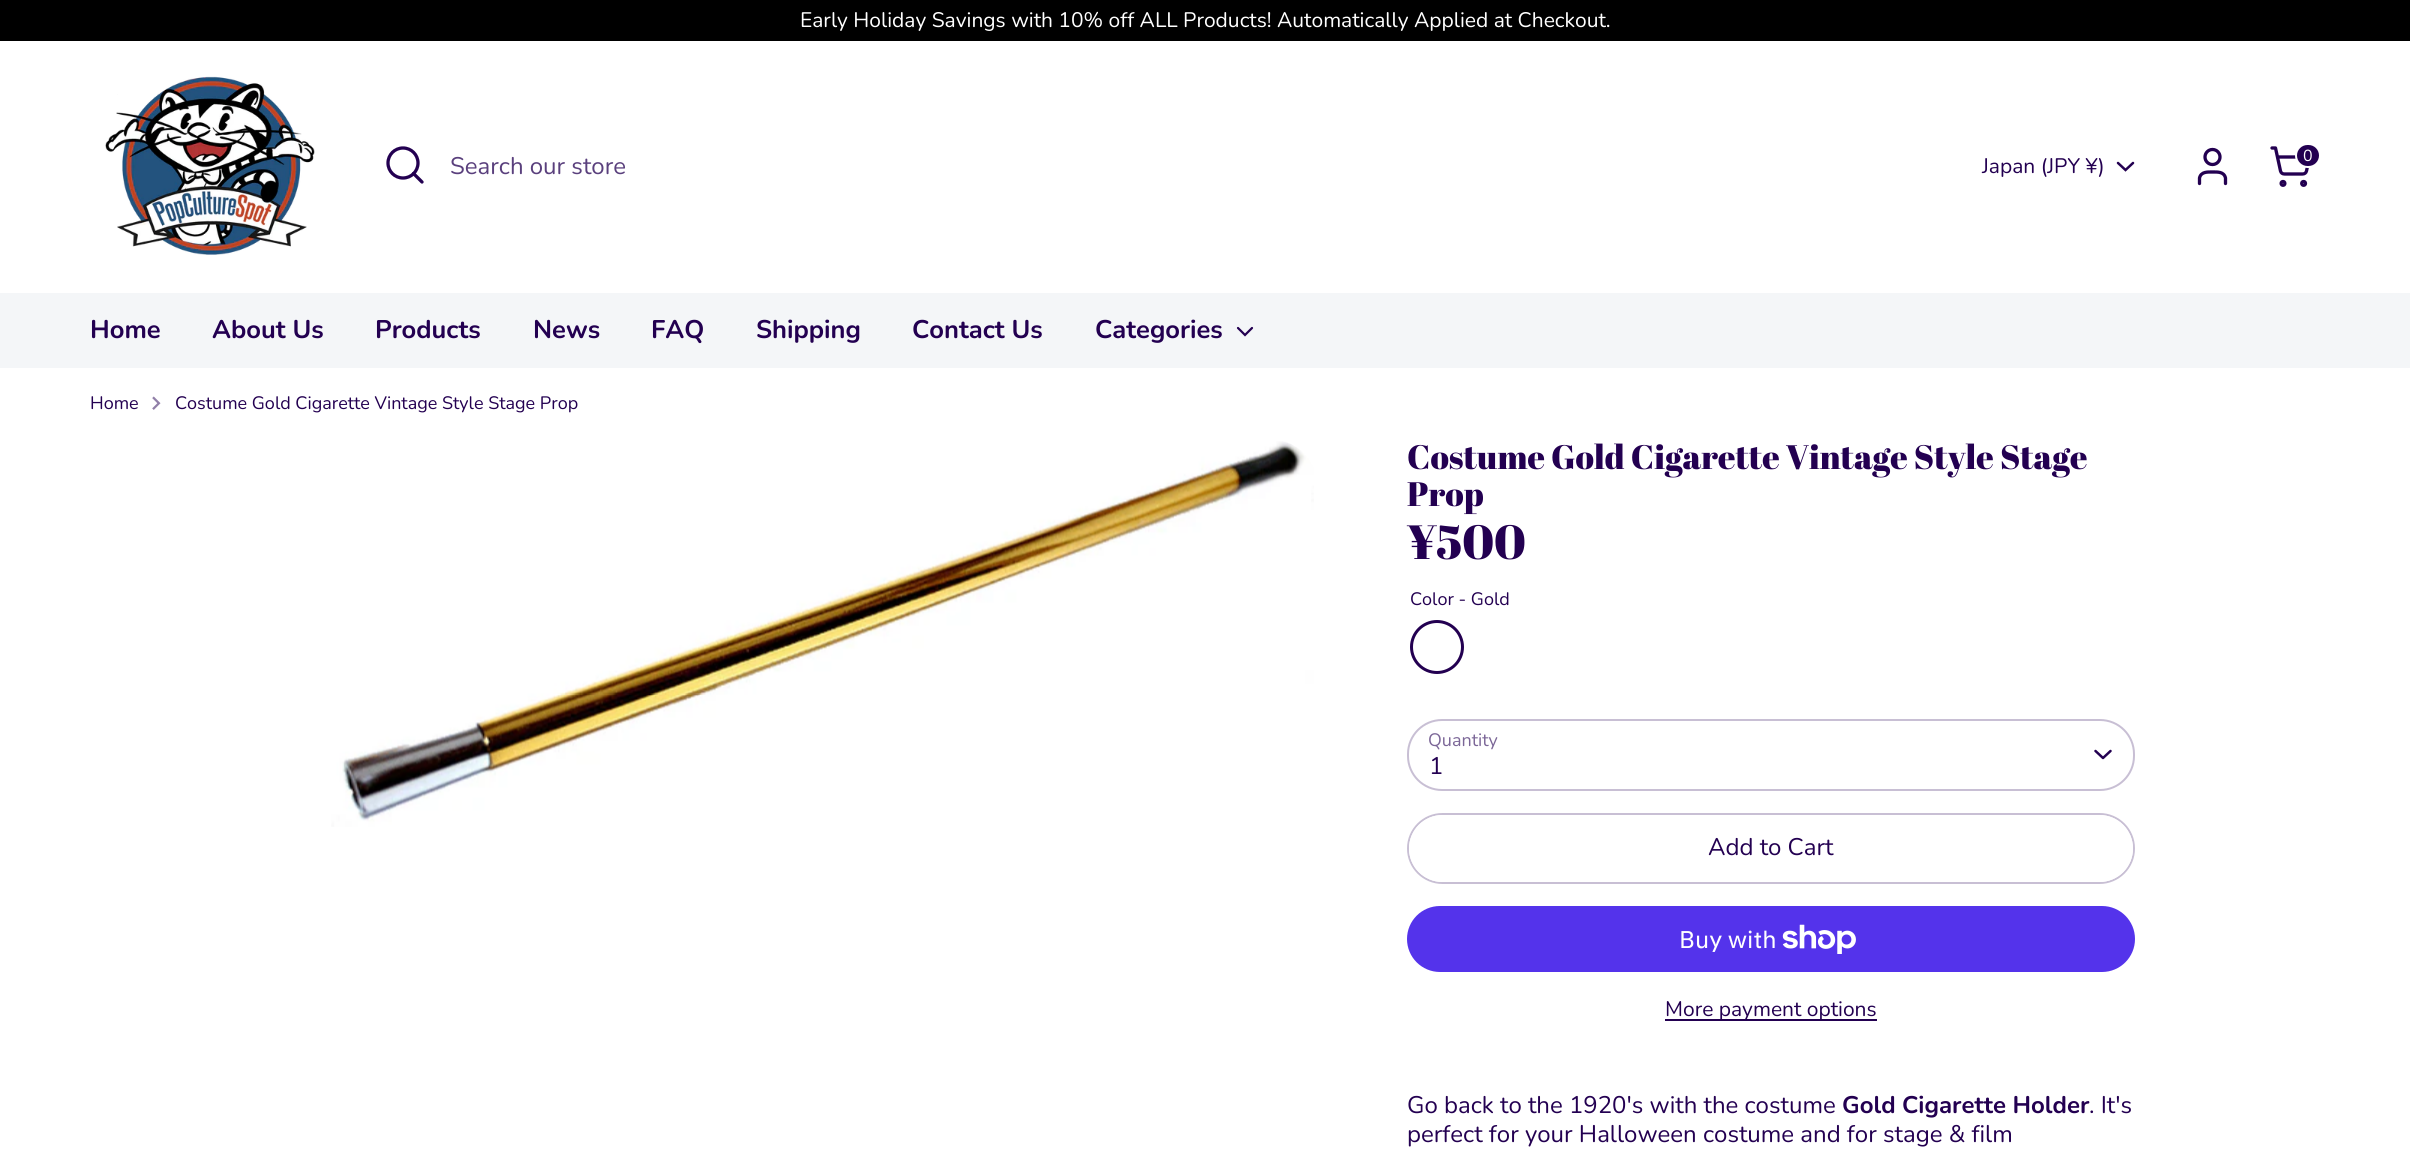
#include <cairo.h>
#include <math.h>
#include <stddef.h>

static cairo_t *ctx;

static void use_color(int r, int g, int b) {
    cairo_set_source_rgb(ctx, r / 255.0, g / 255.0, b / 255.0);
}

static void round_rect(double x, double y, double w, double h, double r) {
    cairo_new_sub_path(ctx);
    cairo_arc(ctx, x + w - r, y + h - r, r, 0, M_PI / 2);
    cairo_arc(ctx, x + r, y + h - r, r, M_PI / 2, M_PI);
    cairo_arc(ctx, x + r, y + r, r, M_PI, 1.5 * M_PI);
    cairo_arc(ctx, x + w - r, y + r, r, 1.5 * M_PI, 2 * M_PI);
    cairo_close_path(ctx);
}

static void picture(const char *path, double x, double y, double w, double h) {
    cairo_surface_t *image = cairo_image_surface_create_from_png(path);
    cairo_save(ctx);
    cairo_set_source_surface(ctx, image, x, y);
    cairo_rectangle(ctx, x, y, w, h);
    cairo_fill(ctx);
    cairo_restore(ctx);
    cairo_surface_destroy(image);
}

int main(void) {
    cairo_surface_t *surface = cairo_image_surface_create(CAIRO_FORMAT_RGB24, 2410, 1159);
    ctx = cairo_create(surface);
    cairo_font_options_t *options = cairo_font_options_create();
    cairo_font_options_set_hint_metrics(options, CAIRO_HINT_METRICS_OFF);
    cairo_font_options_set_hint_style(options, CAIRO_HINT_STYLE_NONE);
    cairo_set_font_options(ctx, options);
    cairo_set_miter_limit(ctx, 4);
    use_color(255, 255, 255);
    cairo_paint(ctx);
    use_color(0, 0, 0);
    cairo_rectangle(ctx, 0, 0, 2410, 41);
    cairo_fill(ctx);
    cairo_select_font_face(ctx, "Nunito", CAIRO_FONT_SLANT_NORMAL, CAIRO_FONT_WEIGHT_NORMAL);
    cairo_set_font_size(ctx, 21);
    use_color(255, 255, 255);
    cairo_move_to(ctx, 800, 27);
    cairo_show_text(ctx, "Early Holiday Savings with 10% off ALL Products! Automatically Applied at Checkout.");
    picture("img1.png", 105, 76, 210, 179);
    cairo_arc(ctx, 403, 163, 15, 0, 2 * M_PI);
    use_color(35, 0, 81);
    cairo_set_line_width(ctx, 3.3);
    cairo_stroke(ctx);
    cairo_new_path(ctx);
    cairo_move_to(ctx, 422, 182);
    cairo_line_to(ctx, 413.5, 173.5);
    cairo_set_line_cap(ctx, CAIRO_LINE_CAP_ROUND);
    cairo_set_line_join(ctx, CAIRO_LINE_JOIN_ROUND);
    cairo_stroke(ctx);
    cairo_set_font_size(ctx, 24);
    use_color(90, 64, 125);
    cairo_move_to(ctx, 450, 174);
    cairo_show_text(ctx, "Search our store");
    cairo_new_path(ctx);
    cairo_move_to(ctx, 2225.5, 183.5);
    cairo_line_to(ctx, 2225.5, 178);
    cairo_curve_to(ctx, 2224, 171.5, 2217.5, 172, 2212.5, 172);
    cairo_curve_to(ctx, 2207.5, 172, 2201, 171.5, 2199.5, 178);
    cairo_line_to(ctx, 2199.5, 183.5);
    use_color(35, 0, 81);
    cairo_stroke(ctx);
    cairo_arc(ctx, 2212.5, 157, 7.5, 0, 2 * M_PI);
    cairo_set_line_cap(ctx, CAIRO_LINE_CAP_BUTT);
    cairo_set_line_join(ctx, CAIRO_LINE_JOIN_MITER);
    cairo_stroke(ctx);
    cairo_arc(ctx, 2283, 183.4, 1.9, 0, 2 * M_PI);
    cairo_stroke(ctx);
    cairo_arc(ctx, 2303.6, 183.4, 1.9, 0, 2 * M_PI);
    cairo_stroke(ctx);
    cairo_new_path(ctx);
    cairo_move_to(ctx, 2272, 148);
    cairo_line_to(ctx, 2275.5, 148);
    cairo_line_to(ctx, 2280.5, 171);
    cairo_curve_to(ctx, 2281, 173, 2282.5, 174, 2284.5, 174);
    cairo_line_to(ctx, 2302.5, 174);
    cairo_curve_to(ctx, 2304.5, 174, 2306, 173, 2306.5, 171);
    cairo_line_to(ctx, 2309.5, 157);
    cairo_line_to(ctx, 2277.5, 157);
    cairo_set_line_cap(ctx, CAIRO_LINE_CAP_ROUND);
    cairo_set_line_join(ctx, CAIRO_LINE_JOIN_ROUND);
    cairo_stroke(ctx);
    round_rect(2296, 144, 24, 23, 11.5);
    cairo_fill_preserve(ctx);
    use_color(255, 255, 255);
    cairo_set_line_width(ctx, 2);
    cairo_set_line_cap(ctx, CAIRO_LINE_CAP_BUTT);
    cairo_set_line_join(ctx, CAIRO_LINE_JOIN_MITER);
    cairo_stroke(ctx);
    cairo_set_font_size(ctx, 16);
    cairo_move_to(ctx, 2303, 161);
    cairo_show_text(ctx, "0");
    cairo_set_font_size(ctx, 21);
    use_color(35, 0, 81);
    cairo_move_to(ctx, 1982, 173);
    cairo_show_text(ctx, "Japan (JPY ¥)");
    cairo_new_path(ctx);
    cairo_move_to(ctx, 2118, 163);
    cairo_line_to(ctx, 2125.5, 170);
    cairo_line_to(ctx, 2133, 163);
    cairo_set_line_width(ctx, 2.5);
    cairo_set_line_cap(ctx, CAIRO_LINE_CAP_ROUND);
    cairo_stroke(ctx);
    use_color(244, 246, 248);
    cairo_rectangle(ctx, 0, 293, 2410, 75);
    cairo_fill(ctx);
    cairo_select_font_face(ctx, "Nunito", CAIRO_FONT_SLANT_NORMAL, CAIRO_FONT_WEIGHT_BOLD);
    cairo_set_font_size(ctx, 25.5);
    use_color(35, 0, 81);
    cairo_move_to(ctx, 90, 338);
    cairo_show_text(ctx, "Home");
    cairo_move_to(ctx, 212, 338);
    cairo_show_text(ctx, "About Us");
    cairo_move_to(ctx, 375, 338);
    cairo_show_text(ctx, "Products");
    cairo_move_to(ctx, 533, 338);
    cairo_show_text(ctx, "News");
    cairo_move_to(ctx, 651, 338);
    cairo_show_text(ctx, "FAQ");
    cairo_move_to(ctx, 756, 338);
    cairo_show_text(ctx, "Shipping");
    cairo_move_to(ctx, 912, 338);
    cairo_show_text(ctx, "Contact Us");
    cairo_move_to(ctx, 1095, 338);
    cairo_show_text(ctx, "Categories");
    cairo_new_path(ctx);
    cairo_move_to(ctx, 1238, 328);
    cairo_line_to(ctx, 1245, 335);
    cairo_line_to(ctx, 1252, 328);
    cairo_set_line_width(ctx, 2.2);
    cairo_stroke(ctx);
    cairo_select_font_face(ctx, "Nunito", CAIRO_FONT_SLANT_NORMAL, CAIRO_FONT_WEIGHT_NORMAL);
    cairo_set_font_size(ctx, 18);
    cairo_move_to(ctx, 90, 409);
    cairo_show_text(ctx, "Home");
    picture("img2.png", 152, 396, 9, 14);
    cairo_move_to(ctx, 175, 409);
    cairo_show_text(ctx, "Costume Gold Cigarette Vintage Style Stage Prop");
    picture("img3.png", 331, 441, 983, 386);
    cairo_select_font_face(ctx, "Abril Fatface", CAIRO_FONT_SLANT_NORMAL, CAIRO_FONT_WEIGHT_NORMAL);
    cairo_set_font_size(ctx, 33.9);
    cairo_move_to(ctx, 1407, 469);
    cairo_show_text(ctx, "Costume Gold Cigarette Vintage Style Stage");
    cairo_move_to(ctx, 1407, 506);
    cairo_show_text(ctx, "Prop");
    cairo_set_font_size(ctx, 48);
    cairo_move_to(ctx, 1407, 559);
    cairo_show_text(ctx, "¥500");
    cairo_select_font_face(ctx, "Nunito", CAIRO_FONT_SLANT_NORMAL, CAIRO_FONT_WEIGHT_NORMAL);
    cairo_set_font_size(ctx, 18);
    cairo_move_to(ctx, 1410, 605);
    cairo_show_text(ctx, "Color - Gold");
    cairo_new_path(ctx);
    cairo_arc(ctx, 1437, 647, 25.5, 0, 2 * M_PI);
    cairo_set_line_width(ctx, 3);
    cairo_set_line_cap(ctx, CAIRO_LINE_CAP_BUTT);
    cairo_stroke(ctx);
    use_color(123, 102, 151);
    cairo_move_to(ctx, 1428, 746);
    cairo_show_text(ctx, "Quantity");
    round_rect(1408, 720, 726, 70, 34);
    use_color(200, 191, 212);
    cairo_set_line_width(ctx, 2);
    cairo_stroke(ctx);
    cairo_new_path(ctx);
    cairo_move_to(ctx, 2095.5, 751);
    cairo_line_to(ctx, 2103, 758);
    cairo_line_to(ctx, 2110.5, 751);
    use_color(35, 0, 81);
    cairo_set_line_width(ctx, 2.5);
    cairo_set_line_cap(ctx, CAIRO_LINE_CAP_ROUND);
    cairo_set_line_join(ctx, CAIRO_LINE_JOIN_ROUND);
    cairo_stroke(ctx);
    cairo_set_font_size(ctx, 24);
    cairo_move_to(ctx, 1429, 774);
    cairo_show_text(ctx, "1");
    round_rect(1408, 814, 726, 69, 34.5);
    use_color(200, 191, 212);
    cairo_set_line_width(ctx, 2);
    cairo_set_line_cap(ctx, CAIRO_LINE_CAP_BUTT);
    cairo_set_line_join(ctx, CAIRO_LINE_JOIN_MITER);
    cairo_stroke(ctx);
    use_color(255, 255, 255);
    round_rect(1409, 815, 724, 67, 33.5);
    cairo_fill(ctx);
    use_color(35, 0, 81);
    cairo_move_to(ctx, 1708, 855);
    cairo_show_text(ctx, "Add to Cart");
    use_color(84, 51, 235);
    round_rect(1407, 906, 728, 66, 33);
    cairo_fill(ctx);
    cairo_select_font_face(ctx, "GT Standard", CAIRO_FONT_SLANT_NORMAL, CAIRO_FONT_WEIGHT_NORMAL);
    use_color(255, 255, 255);
    cairo_move_to(ctx, 1679, 948);
    cairo_show_text(ctx, "Buy with");
    picture("img4.png", 1782, 924, 74, 30);
    use_color(35, 0, 81);
    cairo_rectangle(ctx, 1665, 1019, 212, 2);
    cairo_fill(ctx);
    cairo_select_font_face(ctx, "Nunito", CAIRO_FONT_SLANT_NORMAL, CAIRO_FONT_WEIGHT_NORMAL);
    cairo_set_font_size(ctx, 21);
    cairo_move_to(ctx, 1665, 1016);
    cairo_show_text(ctx, "More payment options");
    cairo_set_font_size(ctx, 24);
    cairo_move_to(ctx, 1407, 1113);
    cairo_show_text(ctx, "Go back to the 1920's with the costume");
    cairo_select_font_face(ctx, "Nunito", CAIRO_FONT_SLANT_NORMAL, CAIRO_FONT_WEIGHT_BOLD);
    cairo_move_to(ctx, 1842, 1113);
    cairo_show_text(ctx, "Gold Cigarette Holder");
    cairo_select_font_face(ctx, "Nunito", CAIRO_FONT_SLANT_NORMAL, CAIRO_FONT_WEIGHT_NORMAL);
    cairo_move_to(ctx, 2089, 1113);
    cairo_show_text(ctx, ". It's");
    cairo_move_to(ctx, 1407, 1142);
    cairo_show_text(ctx, "perfect for your Halloween costume and for stage & film");
    cairo_surface_write_to_png(surface, "result.png");
    cairo_font_options_destroy(options);
    cairo_destroy(ctx);
    cairo_surface_destroy(surface);
    return 0;
}
